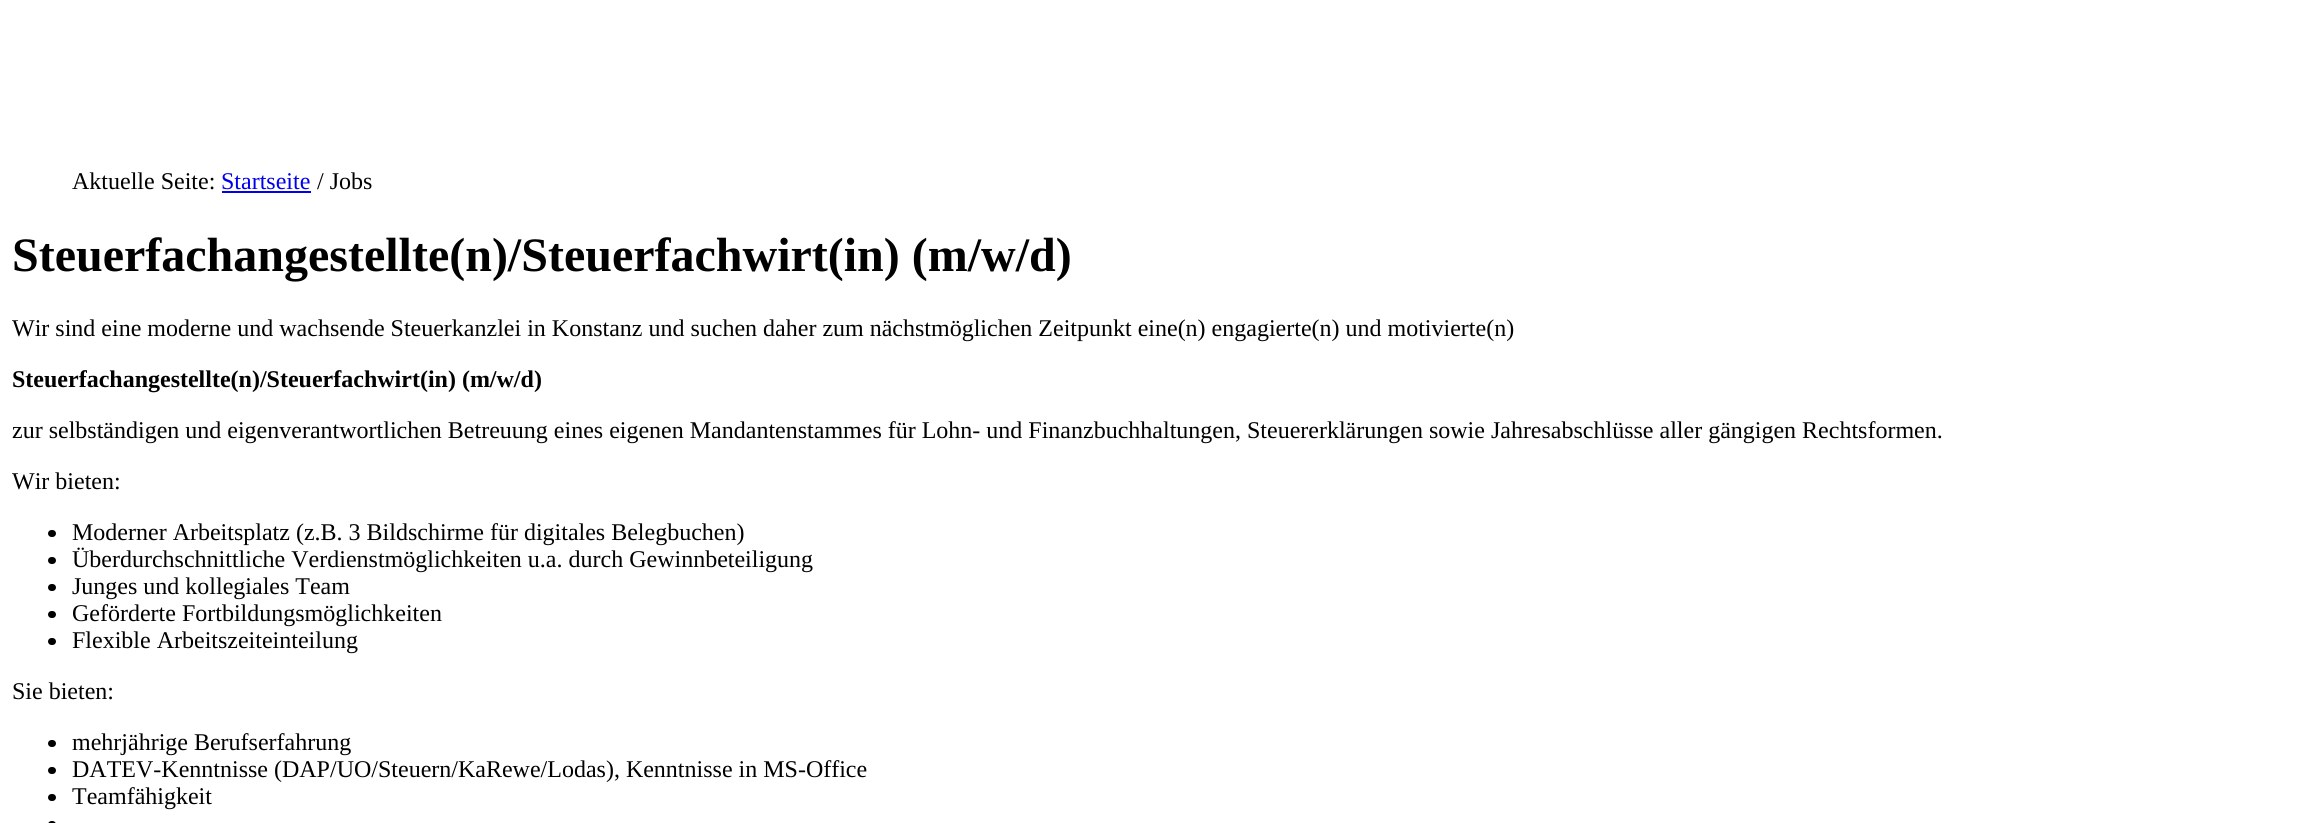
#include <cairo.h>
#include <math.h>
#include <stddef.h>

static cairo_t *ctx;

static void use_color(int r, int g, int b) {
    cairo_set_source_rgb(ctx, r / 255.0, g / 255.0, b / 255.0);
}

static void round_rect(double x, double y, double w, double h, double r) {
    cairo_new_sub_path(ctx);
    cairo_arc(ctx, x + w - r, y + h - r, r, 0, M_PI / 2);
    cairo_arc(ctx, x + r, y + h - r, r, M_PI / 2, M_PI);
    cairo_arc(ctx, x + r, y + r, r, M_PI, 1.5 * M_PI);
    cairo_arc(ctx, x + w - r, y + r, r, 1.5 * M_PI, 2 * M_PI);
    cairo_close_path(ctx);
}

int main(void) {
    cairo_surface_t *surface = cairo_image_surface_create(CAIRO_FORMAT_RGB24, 2308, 823);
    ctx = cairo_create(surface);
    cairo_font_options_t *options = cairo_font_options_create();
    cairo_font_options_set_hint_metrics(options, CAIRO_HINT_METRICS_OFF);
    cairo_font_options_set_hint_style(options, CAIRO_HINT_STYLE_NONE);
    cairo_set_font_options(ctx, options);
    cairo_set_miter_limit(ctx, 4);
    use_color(255, 255, 255);
    cairo_paint(ctx);
    cairo_select_font_face(ctx, "Liberation Serif", CAIRO_FONT_SLANT_NORMAL, CAIRO_FONT_WEIGHT_NORMAL);
    cairo_set_font_size(ctx, 24);
    use_color(0, 0, 0);
    cairo_move_to(ctx, 72, 189);
    cairo_show_text(ctx, "Aktuelle Seite:");
    use_color(0, 0, 238);
    cairo_move_to(ctx, 221, 189);
    cairo_show_text(ctx, "Startseite");
    cairo_rectangle(ctx, 222, 191, 89, 2);
    cairo_fill(ctx);
    use_color(0, 0, 0);
    cairo_move_to(ctx, 317, 189);
    cairo_show_text(ctx, "/ Jobs");
    cairo_select_font_face(ctx, "Liberation Serif", CAIRO_FONT_SLANT_NORMAL, CAIRO_FONT_WEIGHT_BOLD);
    cairo_set_font_size(ctx, 48);
    cairo_move_to(ctx, 12, 271);
    cairo_show_text(ctx, "Steuerfachangestellte(n)/Steuerfachwirt(in) (m/w/d)");
    cairo_select_font_face(ctx, "Liberation Serif", CAIRO_FONT_SLANT_NORMAL, CAIRO_FONT_WEIGHT_NORMAL);
    cairo_set_font_size(ctx, 24);
    cairo_move_to(ctx, 12, 336);
    cairo_show_text(ctx, "Wir sind eine moderne und wachsende Steuerkanzlei in Konstanz und suchen daher zum nächstmöglichen Zeitpunkt eine(n) engagierte(n) und motivierte(n)");
    cairo_select_font_face(ctx, "Liberation Serif", CAIRO_FONT_SLANT_NORMAL, CAIRO_FONT_WEIGHT_BOLD);
    cairo_move_to(ctx, 12, 387);
    cairo_show_text(ctx, "Steuerfachangestellte(n)/Steuerfachwirt(in) (m/w/d)");
    cairo_select_font_face(ctx, "Liberation Serif", CAIRO_FONT_SLANT_NORMAL, CAIRO_FONT_WEIGHT_NORMAL);
    cairo_move_to(ctx, 12, 438);
    cairo_show_text(ctx, "zur selbständigen und eigenverantwortlichen Betreuung eines eigenen Mandantenstammes für Lohn- und Finanzbuchhaltungen, Steuererklärungen sowie Jahresabschlüsse aller gängigen Rechtsformen.");
    cairo_move_to(ctx, 12, 489);
    cairo_show_text(ctx, "Wir bieten:");
    round_rect(48, 530, 8, 7, 3.5);
    cairo_fill(ctx);
    cairo_move_to(ctx, 72, 540);
    cairo_show_text(ctx, "Moderner Arbeitsplatz (z.B. 3 Bildschirme für digitales Belegbuchen)");
    round_rect(48, 557, 8, 7, 3.5);
    cairo_fill(ctx);
    cairo_move_to(ctx, 72, 567);
    cairo_show_text(ctx, "Überdurchschnittliche Verdienstmöglichkeiten u.a. durch Gewinnbeteiligung");
    round_rect(48, 584, 8, 7, 3.5);
    cairo_fill(ctx);
    cairo_move_to(ctx, 72, 594);
    cairo_show_text(ctx, "Junges und kollegiales Team");
    round_rect(48, 611, 8, 7, 3.5);
    cairo_fill(ctx);
    cairo_move_to(ctx, 72, 621);
    cairo_show_text(ctx, "Geförderte Fortbildungsmöglichkeiten");
    round_rect(48, 638, 8, 7, 3.5);
    cairo_fill(ctx);
    cairo_move_to(ctx, 72, 648);
    cairo_show_text(ctx, "Flexible Arbeitszeiteinteilung");
    cairo_move_to(ctx, 12, 699);
    cairo_show_text(ctx, "Sie bieten:");
    round_rect(48, 740, 8, 7, 3.5);
    cairo_fill(ctx);
    cairo_move_to(ctx, 72, 750);
    cairo_show_text(ctx, "mehrjährige Berufserfahrung");
    round_rect(48, 767, 8, 7, 3.5);
    cairo_fill(ctx);
    cairo_move_to(ctx, 72, 777);
    cairo_show_text(ctx, "DATEV-Kenntnisse (DAP/UO/Steuern/KaRewe/Lodas), Kenntnisse in MS-Office");
    round_rect(48, 794, 8, 7, 3.5);
    cairo_fill(ctx);
    cairo_move_to(ctx, 72, 804);
    cairo_show_text(ctx, "Teamfähigkeit");
    round_rect(48, 821, 8, 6, 3.5);
    cairo_fill(ctx);
    cairo_surface_write_to_png(surface, "result.png");
    cairo_font_options_destroy(options);
    cairo_destroy(ctx);
    cairo_surface_destroy(surface);
    return 0;
}
